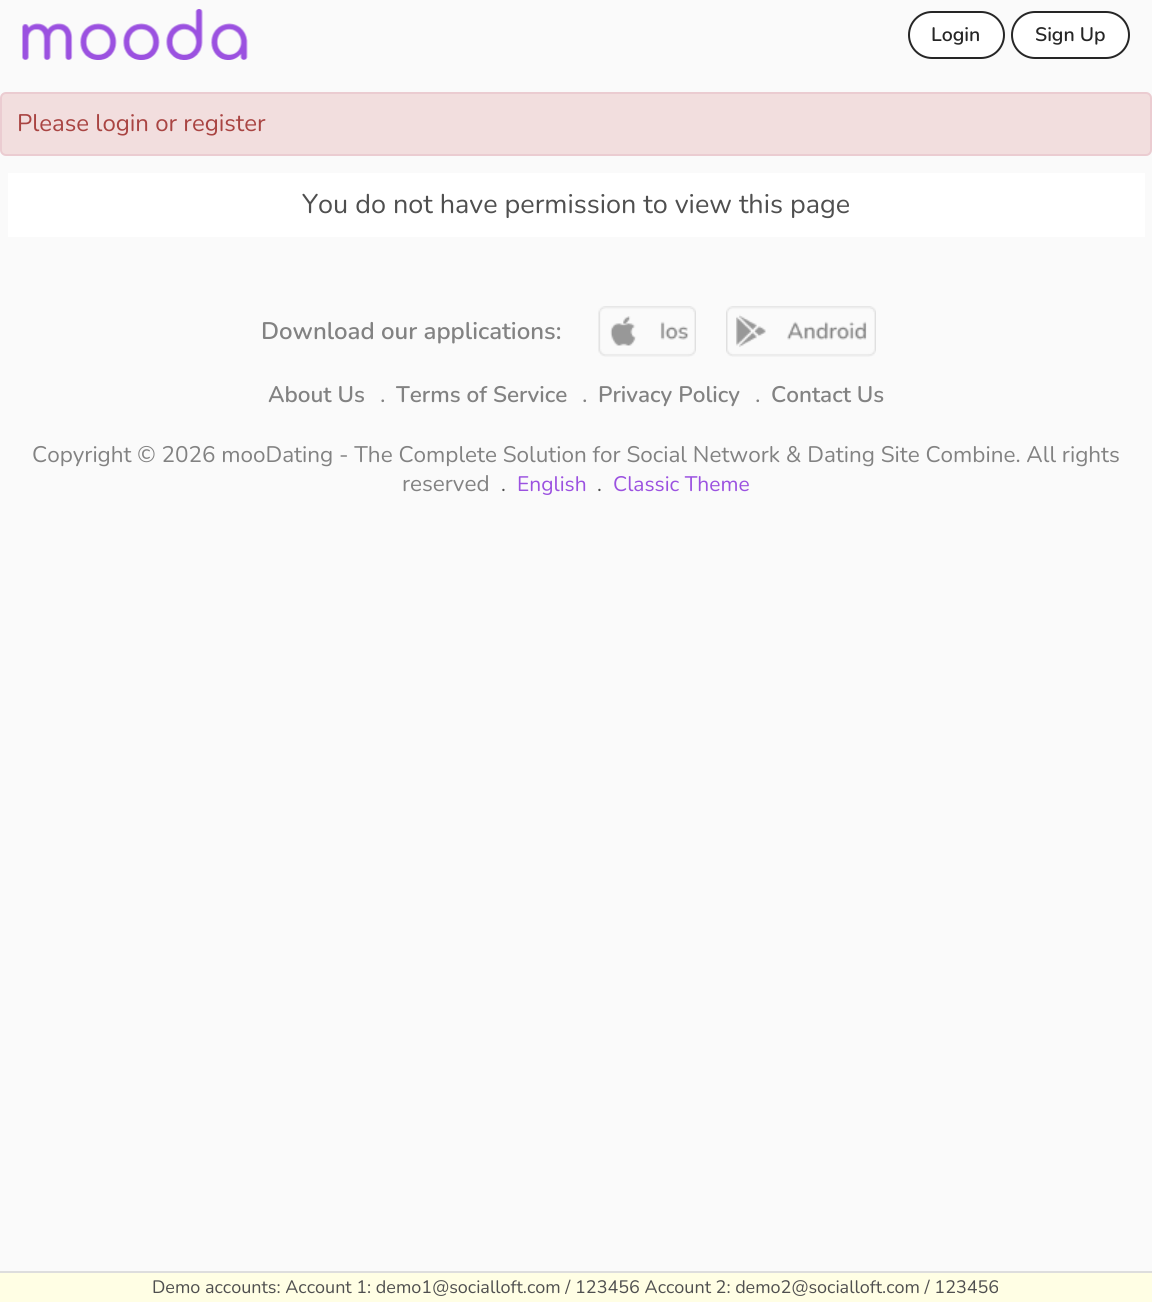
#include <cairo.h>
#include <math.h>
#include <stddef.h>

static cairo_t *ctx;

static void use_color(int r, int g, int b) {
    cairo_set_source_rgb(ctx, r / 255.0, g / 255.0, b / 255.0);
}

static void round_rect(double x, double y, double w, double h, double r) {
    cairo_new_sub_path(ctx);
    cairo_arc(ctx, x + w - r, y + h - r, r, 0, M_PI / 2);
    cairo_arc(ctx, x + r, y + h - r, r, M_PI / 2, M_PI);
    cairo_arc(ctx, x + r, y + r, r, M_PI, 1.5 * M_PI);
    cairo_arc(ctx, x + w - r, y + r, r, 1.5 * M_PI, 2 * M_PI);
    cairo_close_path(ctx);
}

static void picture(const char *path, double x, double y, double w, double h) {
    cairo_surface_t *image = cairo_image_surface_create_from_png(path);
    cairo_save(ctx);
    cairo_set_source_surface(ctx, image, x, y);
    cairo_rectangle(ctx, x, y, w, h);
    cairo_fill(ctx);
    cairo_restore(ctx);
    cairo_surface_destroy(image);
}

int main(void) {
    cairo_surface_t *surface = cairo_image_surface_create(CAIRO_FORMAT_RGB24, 1152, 1302);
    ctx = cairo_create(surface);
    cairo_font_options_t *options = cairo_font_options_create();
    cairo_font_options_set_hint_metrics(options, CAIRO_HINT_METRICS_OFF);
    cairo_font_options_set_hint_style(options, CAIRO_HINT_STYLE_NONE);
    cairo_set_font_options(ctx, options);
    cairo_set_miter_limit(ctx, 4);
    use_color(250, 250, 250);
    cairo_paint(ctx);
    picture("img1.png", 22, 9, 226, 51);
    use_color(255, 255, 255);
    round_rect(909, 12, 95, 46, 23);
    cairo_fill_preserve(ctx);
    use_color(38, 38, 38);
    cairo_stroke(ctx);
    cairo_select_font_face(ctx, "Nunito SemiBold", CAIRO_FONT_SLANT_NORMAL, CAIRO_FONT_WEIGHT_NORMAL);
    cairo_set_font_size(ctx, 19.5);
    cairo_move_to(ctx, 931, 41);
    cairo_show_text(ctx, "Login");
    use_color(255, 255, 255);
    round_rect(1012, 12, 117, 46, 23);
    cairo_fill_preserve(ctx);
    use_color(38, 38, 38);
    cairo_stroke(ctx);
    cairo_move_to(ctx, 1035, 41);
    cairo_show_text(ctx, "Sign Up");
    use_color(242, 222, 222);
    round_rect(1, 93, 1150, 62, 5);
    cairo_fill_preserve(ctx);
    use_color(235, 204, 209);
    cairo_stroke(ctx);
    cairo_select_font_face(ctx, "Nunito", CAIRO_FONT_SLANT_NORMAL, CAIRO_FONT_WEIGHT_NORMAL);
    cairo_set_font_size(ctx, 24);
    use_color(169, 68, 66);
    cairo_move_to(ctx, 17, 131);
    cairo_show_text(ctx, "Please login or register");
    use_color(255, 255, 255);
    cairo_rectangle(ctx, 8, 173, 1137, 64);
    cairo_fill(ctx);
    cairo_set_font_size(ctx, 27);
    use_color(79, 79, 79);
    cairo_move_to(ctx, 302, 213);
    cairo_show_text(ctx, "You do not have permission to view this page");
    cairo_select_font_face(ctx, "Nunito SemiBold", CAIRO_FONT_SLANT_NORMAL, CAIRO_FONT_WEIGHT_NORMAL);
    cairo_set_font_size(ctx, 24);
    use_color(130, 130, 130);
    cairo_move_to(ctx, 261, 339);
    cairo_show_text(ctx, "Download our applications:");
    picture("img2.png", 598, 306, 98, 51);
    picture("img3.png", 726, 306, 150, 51);
    cairo_set_font_size(ctx, 22.5);
    cairo_move_to(ctx, 268, 402);
    cairo_show_text(ctx, "About Us");
    cairo_select_font_face(ctx, "Nunito", CAIRO_FONT_SLANT_NORMAL, CAIRO_FONT_WEIGHT_NORMAL);
    cairo_set_font_size(ctx, 24);
    cairo_move_to(ctx, 380, 402);
    cairo_show_text(ctx, ".");
    cairo_select_font_face(ctx, "Nunito SemiBold", CAIRO_FONT_SLANT_NORMAL, CAIRO_FONT_WEIGHT_NORMAL);
    cairo_set_font_size(ctx, 22.5);
    cairo_move_to(ctx, 396, 402);
    cairo_show_text(ctx, "Terms of Service");
    cairo_select_font_face(ctx, "Nunito", CAIRO_FONT_SLANT_NORMAL, CAIRO_FONT_WEIGHT_NORMAL);
    cairo_set_font_size(ctx, 24);
    cairo_move_to(ctx, 582, 402);
    cairo_show_text(ctx, ".");
    cairo_select_font_face(ctx, "Nunito SemiBold", CAIRO_FONT_SLANT_NORMAL, CAIRO_FONT_WEIGHT_NORMAL);
    cairo_set_font_size(ctx, 22.5);
    cairo_move_to(ctx, 598, 402);
    cairo_show_text(ctx, "Privacy Policy");
    cairo_select_font_face(ctx, "Nunito", CAIRO_FONT_SLANT_NORMAL, CAIRO_FONT_WEIGHT_NORMAL);
    cairo_set_font_size(ctx, 24);
    cairo_move_to(ctx, 755, 402);
    cairo_show_text(ctx, ".");
    cairo_select_font_face(ctx, "Nunito SemiBold", CAIRO_FONT_SLANT_NORMAL, CAIRO_FONT_WEIGHT_NORMAL);
    cairo_set_font_size(ctx, 22.5);
    cairo_move_to(ctx, 771, 402);
    cairo_show_text(ctx, "Contact Us");
    cairo_select_font_face(ctx, "Nunito", CAIRO_FONT_SLANT_NORMAL, CAIRO_FONT_WEIGHT_NORMAL);
    cairo_move_to(ctx, 32, 462);
    cairo_show_text(ctx, "Copyright © 2026 mooDating - The Complete Solution for Social Network & Dating Site Combine. All rights");
    cairo_move_to(ctx, 402, 491);
    cairo_show_text(ctx, "reserved");
    cairo_set_font_size(ctx, 21);
    use_color(79, 79, 79);
    cairo_move_to(ctx, 501, 491);
    cairo_show_text(ctx, ".");
    use_color(155, 81, 224);
    cairo_move_to(ctx, 517, 491);
    cairo_show_text(ctx, "English");
    use_color(79, 79, 79);
    cairo_move_to(ctx, 597, 491);
    cairo_show_text(ctx, ".");
    use_color(155, 81, 224);
    cairo_move_to(ctx, 613, 491);
    cairo_show_text(ctx, "Classic Theme");
    use_color(255, 254, 228);
    cairo_rectangle(ctx, 0, 1273, 1152, 29);
    cairo_fill(ctx);
    use_color(221, 221, 221);
    cairo_rectangle(ctx, 0, 1271, 1152, 2);
    cairo_fill(ctx);
    cairo_set_font_size(ctx, 18);
    use_color(79, 79, 79);
    cairo_move_to(ctx, 152, 1293);
    cairo_show_text(ctx, "Demo accounts: Account 1: demo1@socialloft.com / 123456 Account 2: demo2@socialloft.com / 123456");
    cairo_surface_write_to_png(surface, "result.png");
    cairo_font_options_destroy(options);
    cairo_destroy(ctx);
    cairo_surface_destroy(surface);
    return 0;
}
